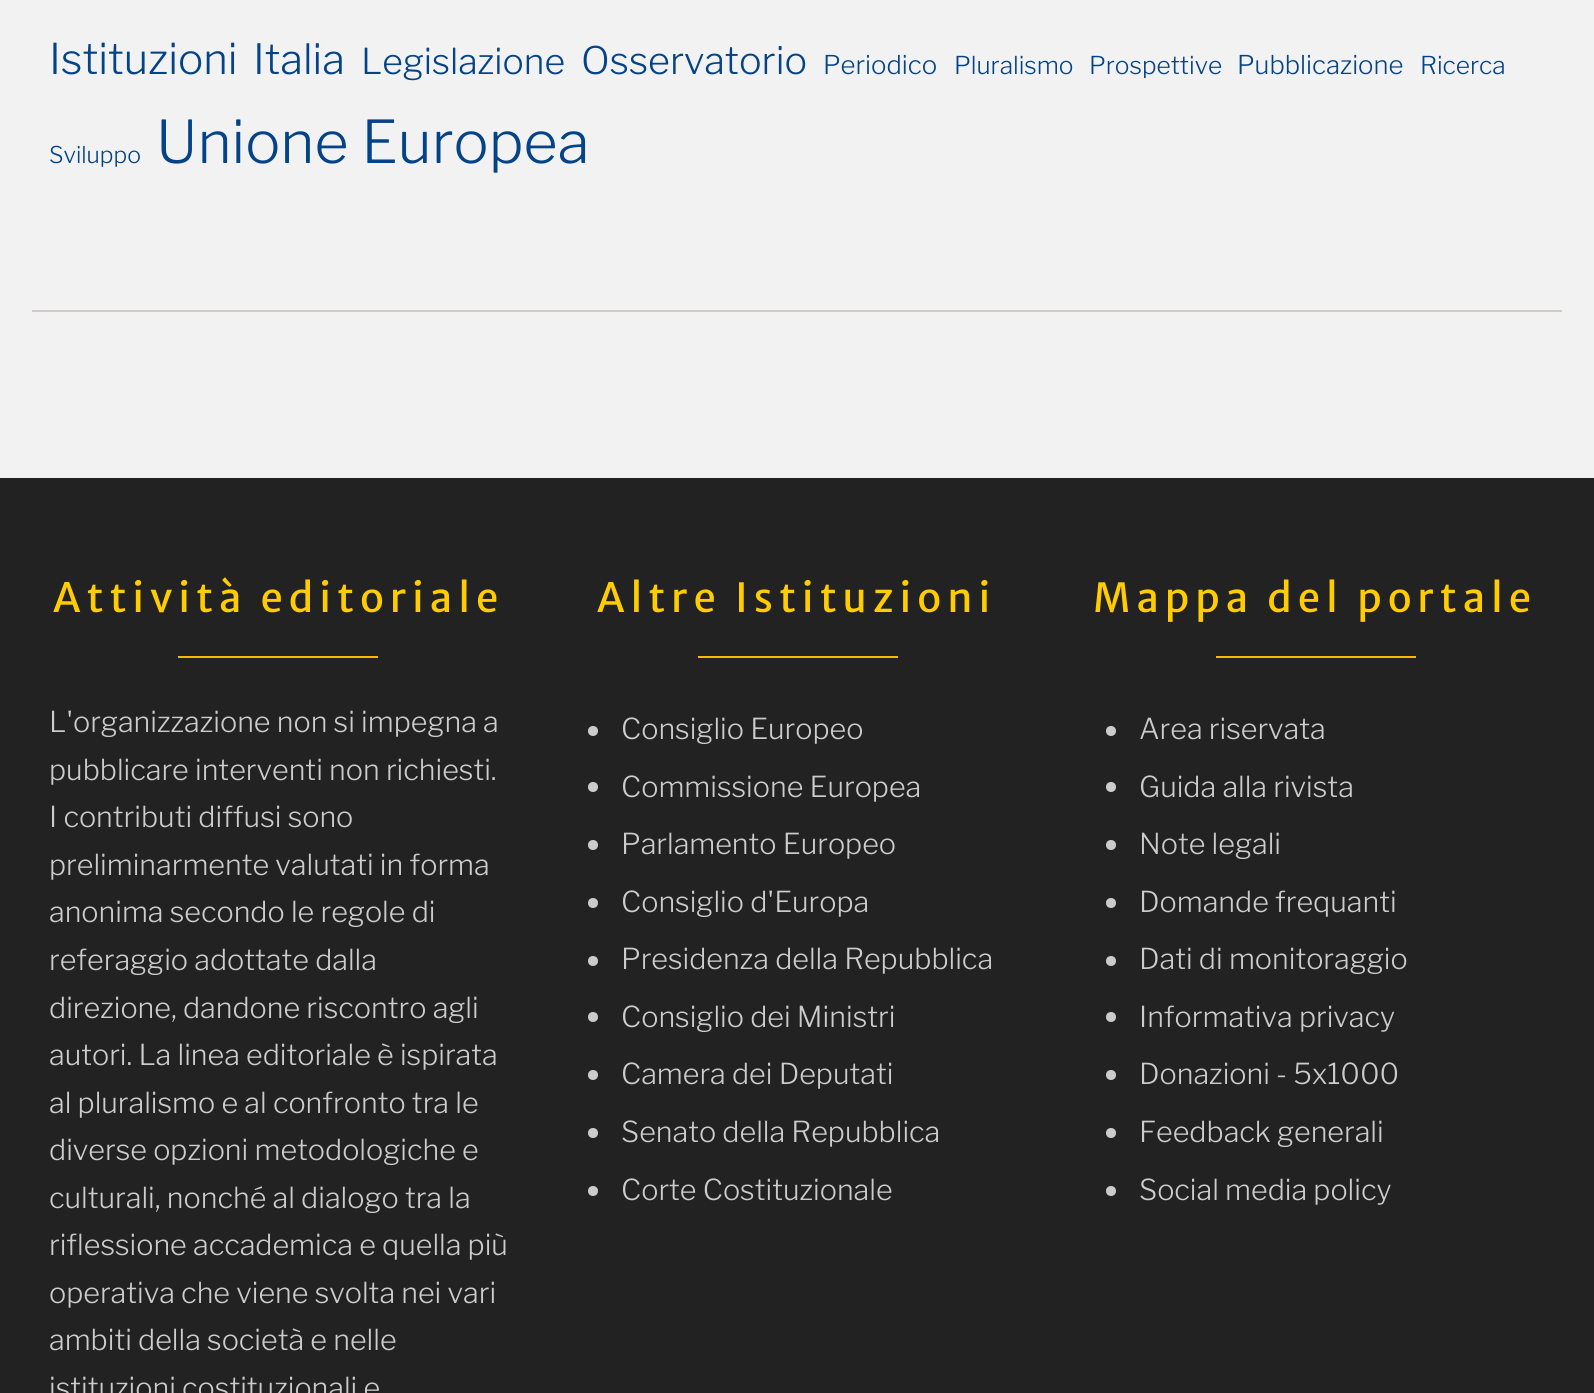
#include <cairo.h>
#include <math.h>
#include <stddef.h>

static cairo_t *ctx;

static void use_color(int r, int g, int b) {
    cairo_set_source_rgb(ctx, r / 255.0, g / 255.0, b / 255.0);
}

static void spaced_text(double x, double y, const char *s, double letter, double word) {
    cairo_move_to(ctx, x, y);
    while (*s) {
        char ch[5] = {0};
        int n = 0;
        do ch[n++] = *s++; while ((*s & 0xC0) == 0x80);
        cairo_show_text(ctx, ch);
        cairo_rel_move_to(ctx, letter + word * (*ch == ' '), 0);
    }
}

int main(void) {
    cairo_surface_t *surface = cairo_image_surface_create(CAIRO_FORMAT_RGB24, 1594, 1393);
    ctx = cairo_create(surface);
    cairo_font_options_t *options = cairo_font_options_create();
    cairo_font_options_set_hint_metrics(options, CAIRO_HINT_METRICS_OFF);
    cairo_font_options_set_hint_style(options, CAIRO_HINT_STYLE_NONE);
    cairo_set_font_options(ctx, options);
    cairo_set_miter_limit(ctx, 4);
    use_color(242, 242, 242);
    cairo_paint(ctx);
    cairo_select_font_face(ctx, "Libre Franklin Light", CAIRO_FONT_SLANT_NORMAL, CAIRO_FONT_WEIGHT_NORMAL);
    cairo_set_font_size(ctx, 42.25);
    use_color(4, 67, 136);
    cairo_move_to(ctx, 49, 74);
    cairo_show_text(ctx, "Istituzioni");
    cairo_set_font_size(ctx, 41.5);
    cairo_move_to(ctx, 253, 74);
    cairo_show_text(ctx, "Italia");
    cairo_set_font_size(ctx, 35.5);
    cairo_move_to(ctx, 361, 74);
    cairo_show_text(ctx, "Legislazione");
    cairo_set_font_size(ctx, 37.75);
    cairo_move_to(ctx, 581, 74);
    cairo_show_text(ctx, "Osservatorio");
    cairo_set_font_size(ctx, 25.75);
    cairo_move_to(ctx, 823, 74);
    cairo_show_text(ctx, "Periodico");
    cairo_set_font_size(ctx, 24.5);
    cairo_move_to(ctx, 954, 74);
    cairo_show_text(ctx, "Pluralismo");
    cairo_move_to(ctx, 1089, 74);
    cairo_show_text(ctx, "Prospettive");
    cairo_set_font_size(ctx, 25.75);
    cairo_move_to(ctx, 1237, 74);
    cairo_show_text(ctx, "Pubblicazione");
    cairo_set_font_size(ctx, 24.5);
    cairo_move_to(ctx, 1420, 74);
    cairo_show_text(ctx, "Ricerca");
    cairo_set_font_size(ctx, 23);
    cairo_move_to(ctx, 49, 163);
    cairo_show_text(ctx, "Sviluppo");
    cairo_set_font_size(ctx, 58.75);
    cairo_move_to(ctx, 156, 163);
    cairo_show_text(ctx, "Unione Europea");
    use_color(207, 204, 199);
    cairo_rectangle(ctx, 32, 310, 1530, 2);
    cairo_fill(ctx);
    use_color(34, 34, 34);
    cairo_rectangle(ctx, 0, 478, 1594, 915);
    cairo_fill(ctx);
    cairo_select_font_face(ctx, "Merriweather Sans", CAIRO_FONT_SLANT_NORMAL, CAIRO_FONT_WEIGHT_NORMAL);
    cairo_set_font_size(ctx, 40);
    use_color(255, 204, 0);
    spaced_text(53, 612, "Attività editoriale", 6, 0);
    use_color(252, 185, 0);
    cairo_rectangle(ctx, 178, 656, 200, 2);
    cairo_fill(ctx);
    cairo_select_font_face(ctx, "Libre Franklin Light", CAIRO_FONT_SLANT_NORMAL, CAIRO_FONT_WEIGHT_NORMAL);
    cairo_set_font_size(ctx, 28.75);
    use_color(204, 204, 204);
    cairo_move_to(ctx, 49, 732);
    cairo_show_text(ctx, "L'organizzazione non si impegna a");
    cairo_move_to(ctx, 49, 780);
    cairo_show_text(ctx, "pubblicare interventi non richiesti.");
    cairo_move_to(ctx, 49, 827);
    cairo_show_text(ctx, "I contributi diffusi sono");
    cairo_move_to(ctx, 49, 875);
    cairo_show_text(ctx, "preliminarmente valutati in forma");
    cairo_move_to(ctx, 49, 922);
    cairo_show_text(ctx, "anonima secondo le regole di");
    cairo_move_to(ctx, 49, 970);
    cairo_show_text(ctx, "referaggio adottate dalla");
    cairo_move_to(ctx, 49, 1018);
    cairo_show_text(ctx, "direzione, dandone riscontro agli");
    cairo_move_to(ctx, 49, 1065);
    cairo_show_text(ctx, "autori. La linea editoriale è ispirata");
    cairo_move_to(ctx, 49, 1113);
    cairo_show_text(ctx, "al pluralismo e al confronto tra le");
    cairo_move_to(ctx, 49, 1160);
    cairo_show_text(ctx, "diverse opzioni metodologiche e");
    cairo_move_to(ctx, 49, 1208);
    cairo_show_text(ctx, "culturali, nonché al dialogo tra la");
    cairo_move_to(ctx, 49, 1255);
    cairo_show_text(ctx, "riflessione accademica e quella più");
    cairo_move_to(ctx, 49, 1303);
    cairo_show_text(ctx, "operativa che viene svolta nei vari");
    cairo_move_to(ctx, 49, 1350);
    cairo_show_text(ctx, "ambiti della società e nelle");
    cairo_move_to(ctx, 49, 1398);
    cairo_show_text(ctx, "istituzioni costituzionali e");
    cairo_select_font_face(ctx, "Merriweather Sans", CAIRO_FONT_SLANT_NORMAL, CAIRO_FONT_WEIGHT_NORMAL);
    cairo_set_font_size(ctx, 40);
    use_color(255, 204, 0);
    spaced_text(597, 612, "Altre Istituzioni", 6, 0);
    use_color(252, 185, 0);
    cairo_rectangle(ctx, 698, 656, 200, 2);
    cairo_fill(ctx);
    use_color(204, 204, 204);
    cairo_arc(ctx, 593, 731, 5, 0, 2 * M_PI);
    cairo_fill(ctx);
    cairo_select_font_face(ctx, "Libre Franklin Light", CAIRO_FONT_SLANT_NORMAL, CAIRO_FONT_WEIGHT_NORMAL);
    cairo_set_font_size(ctx, 28.75);
    cairo_move_to(ctx, 621, 739);
    cairo_show_text(ctx, "Consiglio Europeo");
    cairo_new_path(ctx);
    cairo_arc(ctx, 593, 787, 5, 0, 2 * M_PI);
    cairo_fill(ctx);
    cairo_move_to(ctx, 621, 797);
    cairo_show_text(ctx, "Commissione Europea");
    cairo_new_path(ctx);
    cairo_arc(ctx, 593, 845, 5, 0, 2 * M_PI);
    cairo_fill(ctx);
    cairo_move_to(ctx, 621, 854);
    cairo_show_text(ctx, "Parlamento Europeo");
    cairo_new_path(ctx);
    cairo_arc(ctx, 593, 903, 5, 0, 2 * M_PI);
    cairo_fill(ctx);
    cairo_move_to(ctx, 621, 912);
    cairo_show_text(ctx, "Consiglio d'Europa");
    cairo_new_path(ctx);
    cairo_arc(ctx, 593, 961, 5, 0, 2 * M_PI);
    cairo_fill(ctx);
    cairo_move_to(ctx, 621, 969);
    cairo_show_text(ctx, "Presidenza della Repubblica");
    cairo_new_path(ctx);
    cairo_arc(ctx, 593, 1017, 5, 0, 2 * M_PI);
    cairo_fill(ctx);
    cairo_move_to(ctx, 621, 1027);
    cairo_show_text(ctx, "Consiglio dei Ministri");
    cairo_new_path(ctx);
    cairo_arc(ctx, 593, 1075, 5, 0, 2 * M_PI);
    cairo_fill(ctx);
    cairo_move_to(ctx, 621, 1084);
    cairo_show_text(ctx, "Camera dei Deputati");
    cairo_new_path(ctx);
    cairo_arc(ctx, 593, 1133, 5, 0, 2 * M_PI);
    cairo_fill(ctx);
    cairo_move_to(ctx, 621, 1142);
    cairo_show_text(ctx, "Senato della Repubblica");
    cairo_new_path(ctx);
    cairo_arc(ctx, 593, 1191, 5, 0, 2 * M_PI);
    cairo_fill(ctx);
    cairo_move_to(ctx, 621, 1200);
    cairo_show_text(ctx, "Corte Costituzionale");
    cairo_select_font_face(ctx, "Merriweather Sans", CAIRO_FONT_SLANT_NORMAL, CAIRO_FONT_WEIGHT_NORMAL);
    cairo_set_font_size(ctx, 40);
    use_color(255, 204, 0);
    spaced_text(1093, 612, "Mappa del portale", 6, 0);
    use_color(252, 185, 0);
    cairo_rectangle(ctx, 1216, 656, 200, 2);
    cairo_fill(ctx);
    use_color(204, 204, 204);
    cairo_arc(ctx, 1111, 731, 5, 0, 2 * M_PI);
    cairo_fill(ctx);
    cairo_select_font_face(ctx, "Libre Franklin Light", CAIRO_FONT_SLANT_NORMAL, CAIRO_FONT_WEIGHT_NORMAL);
    cairo_set_font_size(ctx, 28.75);
    cairo_move_to(ctx, 1139, 739);
    cairo_show_text(ctx, "Area riservata");
    cairo_new_path(ctx);
    cairo_arc(ctx, 1111, 787, 5, 0, 2 * M_PI);
    cairo_fill(ctx);
    cairo_move_to(ctx, 1139, 797);
    cairo_show_text(ctx, "Guida alla rivista");
    cairo_new_path(ctx);
    cairo_arc(ctx, 1111, 845, 5, 0, 2 * M_PI);
    cairo_fill(ctx);
    cairo_move_to(ctx, 1139, 854);
    cairo_show_text(ctx, "Note legali");
    cairo_new_path(ctx);
    cairo_arc(ctx, 1111, 903, 5, 0, 2 * M_PI);
    cairo_fill(ctx);
    cairo_move_to(ctx, 1139, 912);
    cairo_show_text(ctx, "Domande frequanti");
    cairo_new_path(ctx);
    cairo_arc(ctx, 1111, 961, 5, 0, 2 * M_PI);
    cairo_fill(ctx);
    cairo_move_to(ctx, 1139, 969);
    cairo_show_text(ctx, "Dati di monitoraggio");
    cairo_new_path(ctx);
    cairo_arc(ctx, 1111, 1017, 5, 0, 2 * M_PI);
    cairo_fill(ctx);
    cairo_move_to(ctx, 1139, 1027);
    cairo_show_text(ctx, "Informativa privacy");
    cairo_new_path(ctx);
    cairo_arc(ctx, 1111, 1075, 5, 0, 2 * M_PI);
    cairo_fill(ctx);
    cairo_move_to(ctx, 1139, 1084);
    cairo_show_text(ctx, "Donazioni - 5x1000");
    cairo_new_path(ctx);
    cairo_arc(ctx, 1111, 1133, 5, 0, 2 * M_PI);
    cairo_fill(ctx);
    cairo_move_to(ctx, 1139, 1142);
    cairo_show_text(ctx, "Feedback generali");
    cairo_new_path(ctx);
    cairo_arc(ctx, 1111, 1191, 5, 0, 2 * M_PI);
    cairo_fill(ctx);
    cairo_move_to(ctx, 1139, 1200);
    cairo_show_text(ctx, "Social media policy");
    cairo_surface_write_to_png(surface, "result.png");
    cairo_font_options_destroy(options);
    cairo_destroy(ctx);
    cairo_surface_destroy(surface);
    return 0;
}
